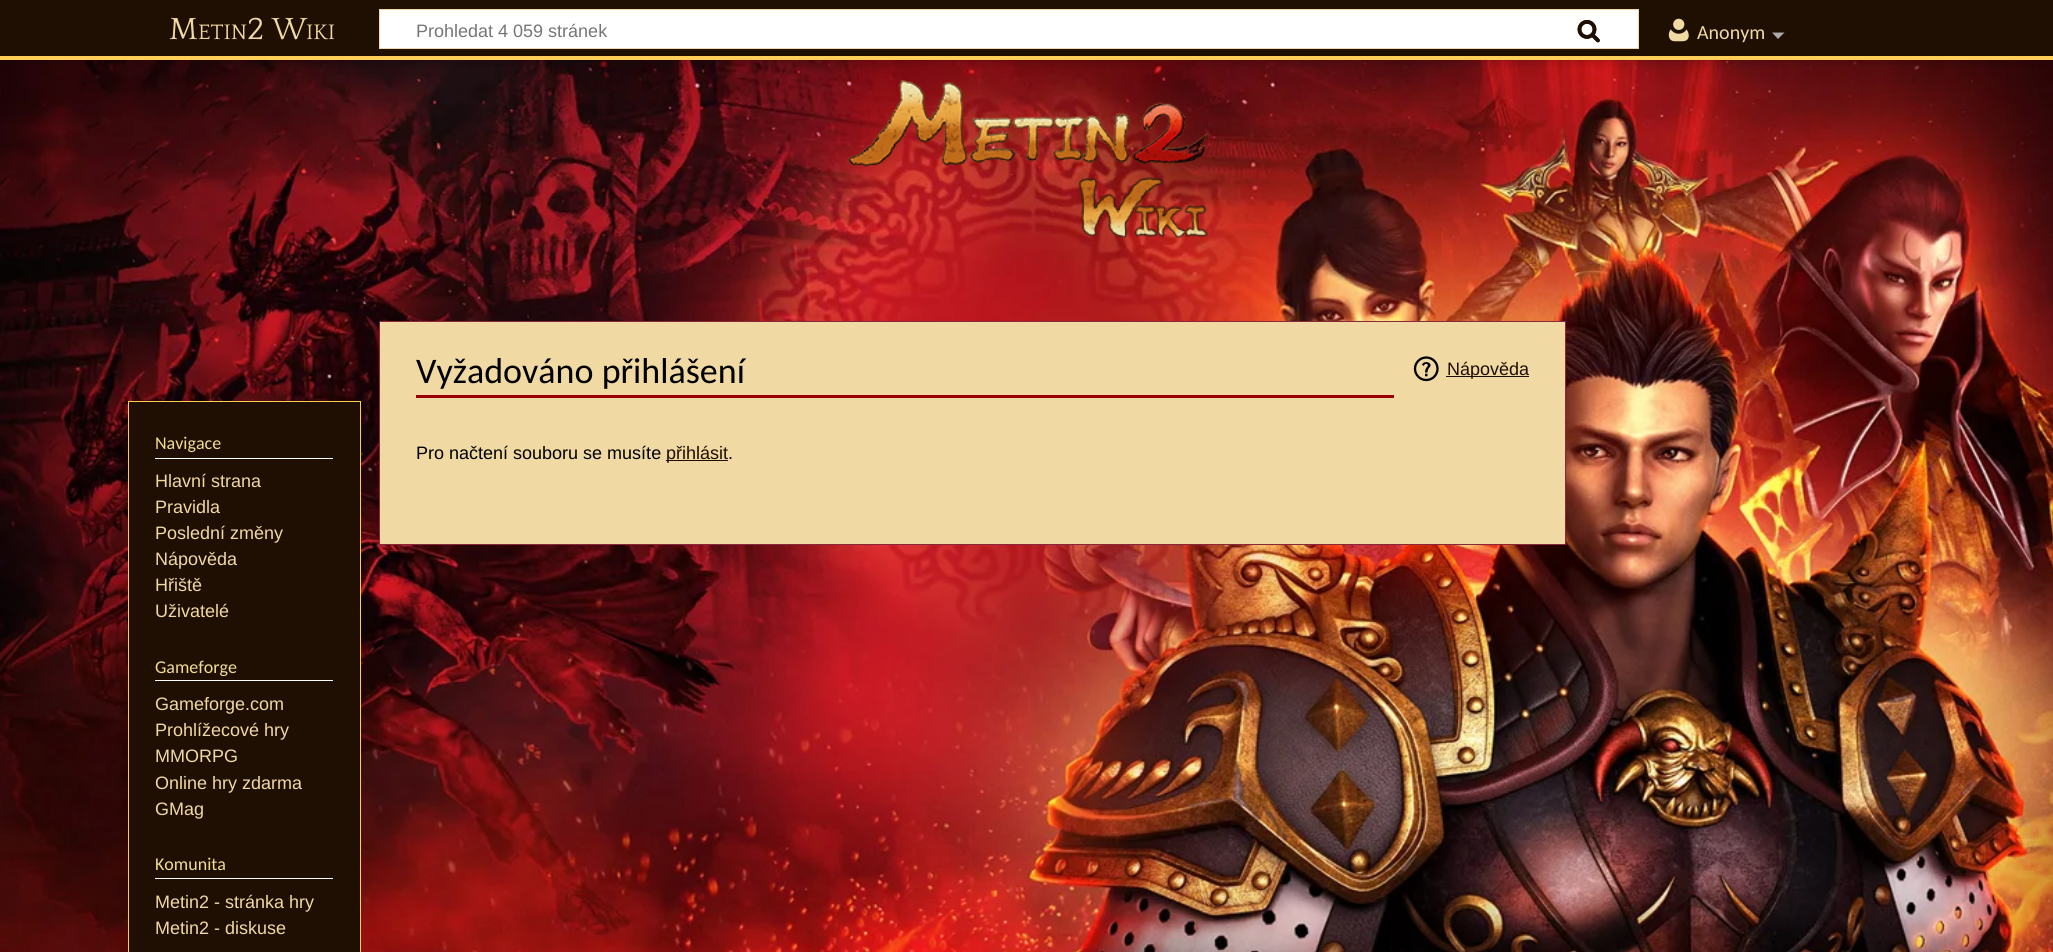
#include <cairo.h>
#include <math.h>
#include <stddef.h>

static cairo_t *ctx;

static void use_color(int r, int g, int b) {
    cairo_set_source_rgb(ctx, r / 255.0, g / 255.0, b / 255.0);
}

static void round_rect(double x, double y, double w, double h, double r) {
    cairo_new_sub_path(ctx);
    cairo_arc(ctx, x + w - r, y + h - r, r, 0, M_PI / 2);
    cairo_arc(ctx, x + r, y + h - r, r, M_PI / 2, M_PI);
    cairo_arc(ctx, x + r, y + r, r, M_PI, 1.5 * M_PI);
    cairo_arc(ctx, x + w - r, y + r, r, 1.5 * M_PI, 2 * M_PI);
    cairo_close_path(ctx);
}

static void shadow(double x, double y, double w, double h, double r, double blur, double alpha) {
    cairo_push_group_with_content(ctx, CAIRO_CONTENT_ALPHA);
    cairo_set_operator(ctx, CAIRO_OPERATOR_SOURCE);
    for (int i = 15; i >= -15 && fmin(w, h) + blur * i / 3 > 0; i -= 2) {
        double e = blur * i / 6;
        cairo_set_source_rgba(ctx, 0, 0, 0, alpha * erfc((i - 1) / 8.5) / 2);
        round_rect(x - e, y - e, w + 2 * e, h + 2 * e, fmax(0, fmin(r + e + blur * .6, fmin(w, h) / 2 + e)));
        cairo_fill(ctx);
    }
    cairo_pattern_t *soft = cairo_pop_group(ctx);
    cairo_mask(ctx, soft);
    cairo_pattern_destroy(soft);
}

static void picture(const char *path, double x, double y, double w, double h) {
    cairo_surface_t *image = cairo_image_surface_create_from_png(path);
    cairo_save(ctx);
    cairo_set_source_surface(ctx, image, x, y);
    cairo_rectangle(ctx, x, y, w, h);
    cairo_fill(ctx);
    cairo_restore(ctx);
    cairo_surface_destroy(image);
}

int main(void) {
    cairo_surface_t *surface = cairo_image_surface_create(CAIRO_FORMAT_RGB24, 2053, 952);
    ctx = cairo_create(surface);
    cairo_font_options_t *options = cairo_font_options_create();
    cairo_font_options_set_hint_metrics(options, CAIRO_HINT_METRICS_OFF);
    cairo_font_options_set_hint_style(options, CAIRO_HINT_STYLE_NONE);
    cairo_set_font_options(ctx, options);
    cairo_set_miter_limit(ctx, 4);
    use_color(255, 255, 255);
    cairo_paint(ctx);
    picture("img1.png", 0, 60, 2053, 892);
    use_color(0, 0, 0);
    shadow(0, 56, 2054, 4, 0, 1, 0.2);
    shadow(-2, 58, 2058, 8, 0, 2, 0.07);
    use_color(31, 14, 2);
    cairo_rectangle(ctx, 0, 0, 2053, 56);
    cairo_fill(ctx);
    cairo_select_font_face(ctx, "Quattrocento", CAIRO_FONT_SLANT_NORMAL, CAIRO_FONT_WEIGHT_NORMAL);
    cairo_set_font_size(ctx, 32);
    use_color(240, 217, 162);
    cairo_move_to(ctx, 169, 39);
    cairo_show_text(ctx, "M");
    cairo_set_font_size(ctx, 22);
    cairo_move_to(ctx, 198, 39);
    cairo_show_text(ctx, "ETIN");
    cairo_set_font_size(ctx, 32);
    cairo_move_to(ctx, 247, 39);
    cairo_show_text(ctx, "2 W");
    cairo_set_font_size(ctx, 22);
    cairo_move_to(ctx, 306, 39);
    cairo_show_text(ctx, "IKI");
    use_color(255, 255, 255);
    cairo_rectangle(ctx, 379.5, 9.5, 1259, 39);
    cairo_fill_preserve(ctx);
    use_color(240, 217, 162);
    cairo_set_line_width(ctx, 1);
    cairo_stroke(ctx);
    picture("img2.png", 1577, 20, 23, 23);
    cairo_select_font_face(ctx, "Liberation Sans", CAIRO_FONT_SLANT_NORMAL, CAIRO_FONT_WEIGHT_NORMAL);
    cairo_set_font_size(ctx, 18);
    use_color(117, 117, 117);
    cairo_move_to(ctx, 416, 37);
    cairo_show_text(ctx, "Prohledat 4 059 stránek");
    picture("img3.png", 1577, 20, 23, 23);
    picture("img4.png", 1668, 18, 21, 24);
    cairo_select_font_face(ctx, "Carlito", CAIRO_FONT_SLANT_NORMAL, CAIRO_FONT_WEIGHT_NORMAL);
    cairo_set_font_size(ctx, 20);
    use_color(240, 217, 162);
    cairo_move_to(ctx, 1697, 39);
    cairo_show_text(ctx, "Anonym");
    use_color(170, 170, 170);
    cairo_new_path(ctx);
    cairo_move_to(ctx, 1784.5, 32.5);
    cairo_line_to(ctx, 1778, 39);
    cairo_line_to(ctx, 1772, 32.5);
    cairo_close_path(ctx);
    cairo_fill(ctx);
    use_color(254, 206, 88);
    cairo_rectangle(ctx, 0, 56, 2053, 4);
    cairo_fill(ctx);
    picture("img5.png", 847, 80, 361, 158);
    use_color(240, 217, 162);
    cairo_rectangle(ctx, 379.5, 321.5, 1186, 223);
    cairo_fill_preserve(ctx);
    use_color(136, 40, 58);
    cairo_stroke(ctx);
    use_color(153, 0, 0);
    cairo_rectangle(ctx, 416, 395, 978, 3);
    cairo_fill(ctx);
    cairo_set_font_size(ctx, 36);
    use_color(0, 0, 0);
    cairo_move_to(ctx, 416, 383);
    cairo_show_text(ctx, "Vyžadováno přihlášení");
    picture("img6.png", 1413, 356, 26, 26);
    use_color(30, 13, 0);
    cairo_rectangle(ctx, 1446, 376, 83, 1);
    cairo_fill(ctx);
    cairo_select_font_face(ctx, "Liberation Sans", CAIRO_FONT_SLANT_NORMAL, CAIRO_FONT_WEIGHT_NORMAL);
    cairo_set_font_size(ctx, 18);
    cairo_move_to(ctx, 1447, 375);
    cairo_show_text(ctx, "Nápověda");
    use_color(0, 0, 0);
    cairo_move_to(ctx, 416, 459);
    cairo_show_text(ctx, "Pro načtení souboru se musíte");
    use_color(30, 13, 0);
    cairo_rectangle(ctx, 666, 460, 62, 1);
    cairo_fill(ctx);
    cairo_move_to(ctx, 666, 459);
    cairo_show_text(ctx, "přihlásit");
    use_color(0, 0, 0);
    cairo_move_to(ctx, 728, 459);
    cairo_show_text(ctx, ".");
    use_color(31, 14, 2);
    cairo_rectangle(ctx, 128.5, 401.5, 232, 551);
    cairo_fill_preserve(ctx);
    use_color(254, 206, 88);
    cairo_stroke(ctx);
    use_color(255, 255, 255);
    cairo_rectangle(ctx, 155, 458, 178, 1);
    cairo_fill(ctx);
    cairo_select_font_face(ctx, "Carlito", CAIRO_FONT_SLANT_NORMAL, CAIRO_FONT_WEIGHT_NORMAL);
    use_color(241, 222, 142);
    cairo_move_to(ctx, 155, 449);
    cairo_show_text(ctx, "Navigace");
    cairo_select_font_face(ctx, "Liberation Sans", CAIRO_FONT_SLANT_NORMAL, CAIRO_FONT_WEIGHT_NORMAL);
    use_color(240, 217, 162);
    cairo_move_to(ctx, 155, 487);
    cairo_show_text(ctx, "Hlavní strana");
    cairo_move_to(ctx, 155, 513);
    cairo_show_text(ctx, "Pravidla");
    cairo_move_to(ctx, 155, 539);
    cairo_show_text(ctx, "Poslední změny");
    cairo_move_to(ctx, 155, 565);
    cairo_show_text(ctx, "Nápověda");
    cairo_move_to(ctx, 155, 591);
    cairo_show_text(ctx, "Hřiště");
    cairo_move_to(ctx, 155, 617);
    cairo_show_text(ctx, "Uživatelé");
    use_color(255, 255, 255);
    cairo_rectangle(ctx, 155, 680, 178, 1);
    cairo_fill(ctx);
    cairo_select_font_face(ctx, "Carlito", CAIRO_FONT_SLANT_NORMAL, CAIRO_FONT_WEIGHT_NORMAL);
    use_color(241, 222, 142);
    cairo_move_to(ctx, 155, 673);
    cairo_show_text(ctx, "Gameforge");
    cairo_select_font_face(ctx, "Liberation Sans", CAIRO_FONT_SLANT_NORMAL, CAIRO_FONT_WEIGHT_NORMAL);
    use_color(240, 217, 162);
    cairo_move_to(ctx, 155, 710);
    cairo_show_text(ctx, "Gameforge.com");
    cairo_move_to(ctx, 155, 736);
    cairo_show_text(ctx, "Prohlížecové hry");
    cairo_move_to(ctx, 155, 762);
    cairo_show_text(ctx, "MMORPG");
    cairo_move_to(ctx, 155, 789);
    cairo_show_text(ctx, "Online hry zdarma");
    cairo_move_to(ctx, 155, 815);
    cairo_show_text(ctx, "GMag");
    use_color(255, 255, 255);
    cairo_rectangle(ctx, 155, 878, 178, 1);
    cairo_fill(ctx);
    cairo_select_font_face(ctx, "Carlito", CAIRO_FONT_SLANT_NORMAL, CAIRO_FONT_WEIGHT_NORMAL);
    use_color(241, 222, 142);
    cairo_move_to(ctx, 155, 870);
    cairo_show_text(ctx, "Komunita");
    cairo_select_font_face(ctx, "Liberation Sans", CAIRO_FONT_SLANT_NORMAL, CAIRO_FONT_WEIGHT_NORMAL);
    use_color(240, 217, 162);
    cairo_move_to(ctx, 155, 908);
    cairo_show_text(ctx, "Metin2 - stránka hry");
    cairo_move_to(ctx, 155, 934);
    cairo_show_text(ctx, "Metin2 - diskuse");
    cairo_surface_write_to_png(surface, "result.png");
    cairo_font_options_destroy(options);
    cairo_destroy(ctx);
    cairo_surface_destroy(surface);
    return 0;
}
